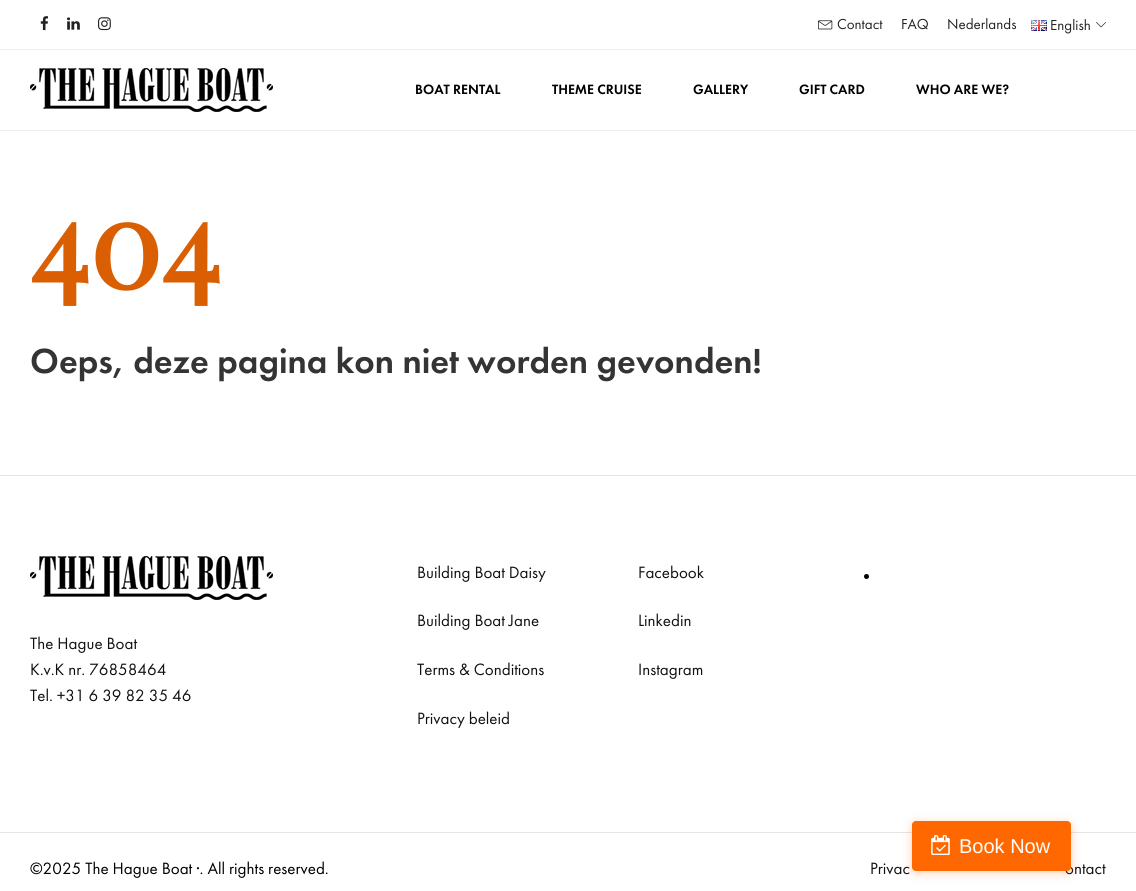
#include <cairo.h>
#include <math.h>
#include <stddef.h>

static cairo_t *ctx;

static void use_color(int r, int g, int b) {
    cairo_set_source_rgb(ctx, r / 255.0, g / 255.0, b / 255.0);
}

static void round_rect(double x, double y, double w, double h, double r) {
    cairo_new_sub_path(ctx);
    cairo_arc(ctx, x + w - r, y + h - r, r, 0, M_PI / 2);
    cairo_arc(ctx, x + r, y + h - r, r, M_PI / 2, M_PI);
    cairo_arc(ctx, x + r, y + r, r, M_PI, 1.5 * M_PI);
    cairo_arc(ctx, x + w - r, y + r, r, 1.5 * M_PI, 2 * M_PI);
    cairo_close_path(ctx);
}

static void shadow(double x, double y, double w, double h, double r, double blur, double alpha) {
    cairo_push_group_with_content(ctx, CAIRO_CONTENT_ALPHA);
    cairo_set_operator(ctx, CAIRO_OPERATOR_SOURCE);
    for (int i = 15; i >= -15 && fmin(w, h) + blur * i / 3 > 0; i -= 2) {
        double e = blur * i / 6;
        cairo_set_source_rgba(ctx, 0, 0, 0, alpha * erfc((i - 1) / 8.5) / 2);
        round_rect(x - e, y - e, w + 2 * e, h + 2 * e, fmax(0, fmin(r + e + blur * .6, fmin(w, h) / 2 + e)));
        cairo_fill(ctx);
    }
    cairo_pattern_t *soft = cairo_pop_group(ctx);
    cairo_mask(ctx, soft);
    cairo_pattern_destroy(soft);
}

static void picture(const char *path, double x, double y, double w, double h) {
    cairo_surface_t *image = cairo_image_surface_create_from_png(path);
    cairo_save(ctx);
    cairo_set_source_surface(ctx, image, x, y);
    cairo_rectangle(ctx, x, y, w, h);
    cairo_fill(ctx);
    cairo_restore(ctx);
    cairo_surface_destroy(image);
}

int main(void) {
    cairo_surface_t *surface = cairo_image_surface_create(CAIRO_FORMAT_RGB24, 1136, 891);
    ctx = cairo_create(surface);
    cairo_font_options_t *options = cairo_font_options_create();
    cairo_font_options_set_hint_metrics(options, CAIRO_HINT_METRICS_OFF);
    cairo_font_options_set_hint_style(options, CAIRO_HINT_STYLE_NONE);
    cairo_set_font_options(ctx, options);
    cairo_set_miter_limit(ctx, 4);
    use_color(255, 255, 255);
    cairo_paint(ctx);
    use_color(238, 238, 238);
    cairo_rectangle(ctx, 0, 49, 1136, 1);
    cairo_fill(ctx);
    picture("img1.png", 40, 16, 9, 15);
    picture("img2.png", 67, 17, 13, 13);
    picture("img3.png", 98, 17, 13, 14);
    picture("img4.png", 818, 20, 15, 10);
    cairo_select_font_face(ctx, "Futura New", CAIRO_FONT_SLANT_NORMAL, CAIRO_FONT_WEIGHT_NORMAL);
    cairo_set_font_size(ctx, 15);
    use_color(34, 34, 34);
    cairo_move_to(ctx, 837, 29);
    cairo_show_text(ctx, "Contact");
    cairo_move_to(ctx, 901, 29);
    cairo_show_text(ctx, "FAQ");
    cairo_move_to(ctx, 947, 29);
    cairo_show_text(ctx, "Nederlands");
    picture("img5.png", 1031, 20, 16, 11);
    cairo_move_to(ctx, 1050, 30);
    cairo_show_text(ctx, "English");
    picture("img6.png", 1096, 22, 10, 6);
    use_color(238, 238, 238);
    cairo_rectangle(ctx, 0, 130, 1136, 1);
    cairo_fill(ctx);
    picture("img7.png", 30, 68, 243, 44);
    cairo_select_font_face(ctx, "Futura New Medium", CAIRO_FONT_SLANT_NORMAL, CAIRO_FONT_WEIGHT_NORMAL);
    cairo_set_font_size(ctx, 14);
    use_color(0, 0, 0);
    cairo_move_to(ctx, 415, 94);
    cairo_show_text(ctx, "BOAT RENTAL");
    cairo_move_to(ctx, 552, 94);
    cairo_show_text(ctx, "THEME CRUISE");
    cairo_move_to(ctx, 693, 94);
    cairo_show_text(ctx, "GALLERY");
    cairo_move_to(ctx, 799, 94);
    cairo_show_text(ctx, "GIFT CARD");
    cairo_move_to(ctx, 916, 94);
    cairo_show_text(ctx, "WHO ARE WE?");
    cairo_select_font_face(ctx, "Playfair Display", CAIRO_FONT_SLANT_NORMAL, CAIRO_FONT_WEIGHT_BOLD);
    cairo_set_font_size(ctx, 120);
    use_color(218, 95, 2);
    cairo_move_to(ctx, 30, 289);
    cairo_show_text(ctx, "404");
    cairo_select_font_face(ctx, "Futura New Medium", CAIRO_FONT_SLANT_NORMAL, CAIRO_FONT_WEIGHT_NORMAL);
    cairo_set_font_size(ctx, 36.1);
    use_color(52, 52, 52);
    cairo_move_to(ctx, 30, 373);
    cairo_show_text(ctx, "Oeps, deze pagina kon niet worden gevonden!");
    use_color(229, 229, 229);
    cairo_rectangle(ctx, 0, 475, 1136, 1);
    cairo_fill(ctx);
    cairo_select_font_face(ctx, "Futura New", CAIRO_FONT_SLANT_NORMAL, CAIRO_FONT_WEIGHT_NORMAL);
    cairo_set_font_size(ctx, 17);
    use_color(17, 17, 17);
    cairo_move_to(ctx, 417, 578);
    cairo_show_text(ctx, "Building Boat Daisy");
    cairo_move_to(ctx, 417, 626);
    cairo_show_text(ctx, "Building Boat Jane");
    cairo_move_to(ctx, 417, 675);
    cairo_show_text(ctx, "Terms & Conditions");
    cairo_move_to(ctx, 417, 724);
    cairo_show_text(ctx, "Privacy beleid");
    cairo_move_to(ctx, 638, 578);
    cairo_show_text(ctx, "Facebook");
    cairo_move_to(ctx, 638, 626);
    cairo_show_text(ctx, "Linkedin");
    cairo_move_to(ctx, 638, 675);
    cairo_show_text(ctx, "Instagram");
    use_color(0, 0, 0);
    cairo_new_path(ctx);
    cairo_arc(ctx, 866.5, 576.5, 2.5, 0, 2 * M_PI);
    cairo_fill(ctx);
    picture("img7.png", 30, 556, 243, 44);
    use_color(17, 17, 17);
    cairo_move_to(ctx, 30, 649);
    cairo_show_text(ctx, "The Hague Boat");
    cairo_move_to(ctx, 30, 675);
    cairo_show_text(ctx, "K.v.K nr. 76858464");
    cairo_move_to(ctx, 30, 701);
    cairo_show_text(ctx, "Tel. +31 6 39 82 35 46");
    use_color(229, 229, 229);
    cairo_rectangle(ctx, 0, 832, 1136, 1);
    cairo_fill(ctx);
    use_color(0, 0, 0);
    cairo_move_to(ctx, 30, 874);
    cairo_show_text(ctx, "©2025 The Hague Boat ·. All rights reserved.");
    use_color(17, 17, 17);
    cairo_move_to(ctx, 870, 874);
    cairo_show_text(ctx, "Privac");
    cairo_move_to(ctx, 1065, 874);
    cairo_show_text(ctx, "ontact");
    use_color(255, 104, 0);
    shadow(912, 823, 159, 50, 4, 5, 0.3);
    use_color(255, 104, 0);
    round_rect(912.5, 821.5, 158, 49, 3.5);
    cairo_fill_preserve(ctx);
    cairo_set_line_width(ctx, 1);
    cairo_stroke(ctx);
    picture("img8.png", 931, 835, 19, 20);
    cairo_select_font_face(ctx, "Liberation Sans", CAIRO_FONT_SLANT_NORMAL, CAIRO_FONT_WEIGHT_NORMAL);
    cairo_set_font_size(ctx, 20);
    use_color(255, 255, 255);
    cairo_move_to(ctx, 959, 853);
    cairo_show_text(ctx, "Book Now");
    cairo_surface_write_to_png(surface, "result.png");
    cairo_font_options_destroy(options);
    cairo_destroy(ctx);
    cairo_surface_destroy(surface);
    return 0;
}
